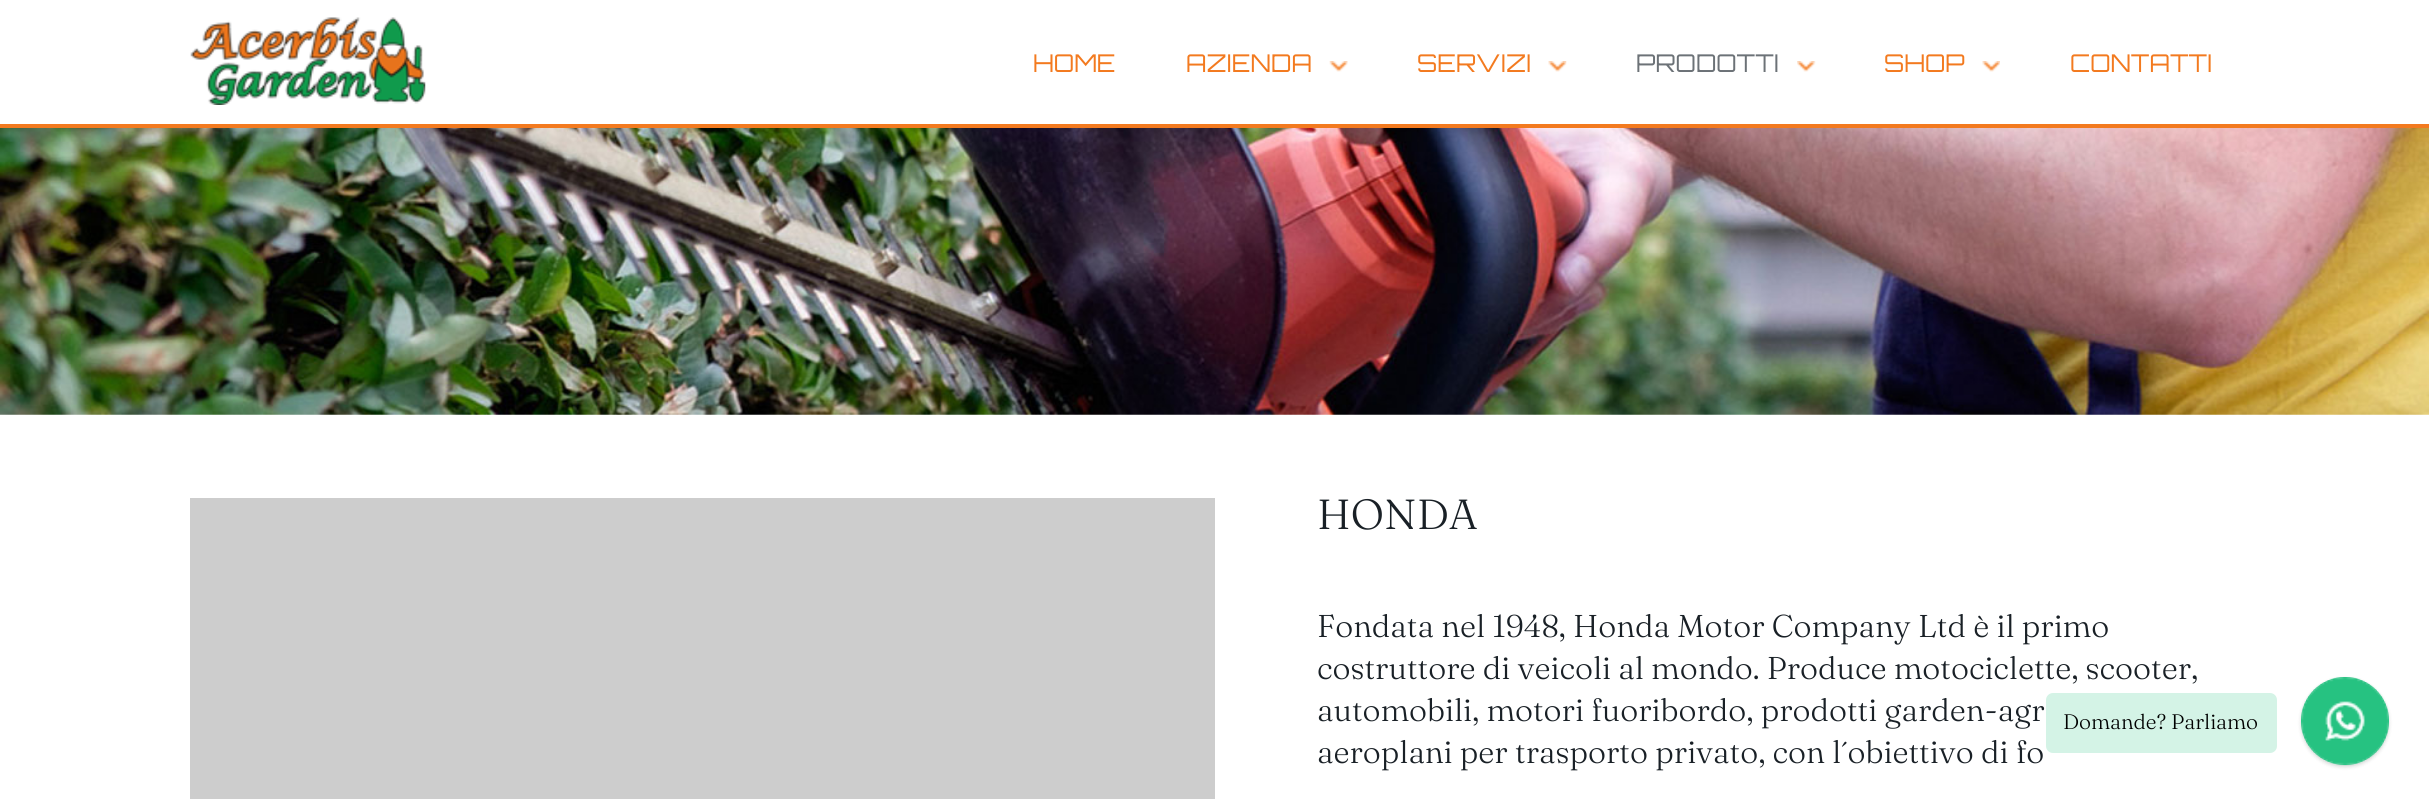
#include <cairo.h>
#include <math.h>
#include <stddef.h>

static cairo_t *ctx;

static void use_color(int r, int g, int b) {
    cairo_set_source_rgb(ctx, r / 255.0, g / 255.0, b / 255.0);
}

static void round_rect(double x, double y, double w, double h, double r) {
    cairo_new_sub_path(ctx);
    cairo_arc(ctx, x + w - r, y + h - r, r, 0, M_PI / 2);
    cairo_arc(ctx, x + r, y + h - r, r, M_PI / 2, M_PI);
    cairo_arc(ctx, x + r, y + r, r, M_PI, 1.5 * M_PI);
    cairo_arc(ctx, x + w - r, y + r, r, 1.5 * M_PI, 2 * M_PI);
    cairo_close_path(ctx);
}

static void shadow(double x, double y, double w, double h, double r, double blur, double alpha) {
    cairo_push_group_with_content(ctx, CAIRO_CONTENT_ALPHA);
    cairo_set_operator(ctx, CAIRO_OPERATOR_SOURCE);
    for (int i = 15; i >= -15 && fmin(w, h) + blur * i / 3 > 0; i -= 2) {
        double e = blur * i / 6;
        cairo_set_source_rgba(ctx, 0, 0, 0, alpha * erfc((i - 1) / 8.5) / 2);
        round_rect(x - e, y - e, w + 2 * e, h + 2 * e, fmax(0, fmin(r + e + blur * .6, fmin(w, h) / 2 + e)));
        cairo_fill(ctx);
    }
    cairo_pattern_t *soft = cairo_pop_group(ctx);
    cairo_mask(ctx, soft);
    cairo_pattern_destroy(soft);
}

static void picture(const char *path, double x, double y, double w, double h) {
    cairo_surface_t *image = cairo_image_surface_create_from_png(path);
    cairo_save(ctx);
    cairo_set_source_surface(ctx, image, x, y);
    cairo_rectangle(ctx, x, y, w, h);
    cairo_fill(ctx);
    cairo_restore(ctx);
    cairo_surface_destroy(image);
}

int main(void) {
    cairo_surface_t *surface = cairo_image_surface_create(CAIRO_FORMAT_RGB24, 2429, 799);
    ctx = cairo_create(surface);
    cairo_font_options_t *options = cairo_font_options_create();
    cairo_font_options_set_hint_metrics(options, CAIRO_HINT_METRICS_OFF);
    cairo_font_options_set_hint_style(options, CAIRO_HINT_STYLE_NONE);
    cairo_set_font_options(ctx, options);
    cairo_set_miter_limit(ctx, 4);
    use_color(255, 255, 255);
    cairo_paint(ctx);
    use_color(243, 122, 31);
    cairo_rectangle(ctx, 0, 124, 2429, 4);
    cairo_fill(ctx);
    picture("img1.png", 190, 17, 236, 88);
    cairo_select_font_face(ctx, "Orbitron", CAIRO_FONT_SLANT_NORMAL, CAIRO_FONT_WEIGHT_NORMAL);
    cairo_set_font_size(ctx, 24.5);
    cairo_move_to(ctx, 1033, 72);
    cairo_show_text(ctx, "HOME");
    cairo_move_to(ctx, 1186, 72);
    cairo_show_text(ctx, "AZIENDA");
    picture("img2.png", 1329, 61, 19, 11);
    cairo_move_to(ctx, 1417, 72);
    cairo_show_text(ctx, "SERVIZI");
    picture("img3.png", 1548, 61, 19, 11);
    use_color(108, 114, 119);
    cairo_move_to(ctx, 1636, 72);
    cairo_show_text(ctx, "PRODOTTI");
    picture("img4.png", 1797, 61, 19, 11);
    use_color(243, 122, 31);
    cairo_move_to(ctx, 1884, 72);
    cairo_show_text(ctx, "SHOP");
    picture("img5.png", 1982, 61, 18, 11);
    cairo_move_to(ctx, 2070, 72);
    cairo_show_text(ctx, "CONTATTI");
    picture("img6.png", 0, 128, 2429, 287);
    use_color(205, 205, 205);
    cairo_rectangle(ctx, 190, 498, 1025, 301);
    cairo_fill(ctx);
    cairo_select_font_face(ctx, "Fraunces Light", CAIRO_FONT_SLANT_NORMAL, CAIRO_FONT_WEIGHT_NORMAL);
    cairo_set_font_size(ctx, 42);
    use_color(25, 32, 38);
    cairo_move_to(ctx, 1317, 529);
    cairo_show_text(ctx, "HONDA");
    cairo_set_font_size(ctx, 31.5);
    cairo_move_to(ctx, 1317, 637);
    cairo_show_text(ctx, "Fondata nel 1948, Honda Motor Company Ltd è il primo");
    cairo_move_to(ctx, 1317, 679);
    cairo_show_text(ctx, "costruttore di veicoli al mondo. Produce motociclette, scooter,");
    cairo_move_to(ctx, 1317, 721);
    cairo_show_text(ctx, "automobili, motori fuoribordo, prodotti garden-agr");
    cairo_move_to(ctx, 1317, 763);
    cairo_show_text(ctx, "aeroplani per trasporto privato, con l´obiettivo di fo");
    use_color(212, 243, 230);
    round_rect(2046, 693, 231, 60, 7);
    cairo_fill(ctx);
    cairo_set_font_size(ctx, 21);
    use_color(0, 0, 0);
    cairo_move_to(ctx, 2063, 729);
    cairo_show_text(ctx, "Domande? Parliamo");
    use_color(0, 0, 0);
    shadow(2301, 679, 88, 88, 44, 2, 0.15);
    use_color(38, 194, 129);
    cairo_arc(ctx, 2345, 721, 44, 0, 2 * M_PI);
    cairo_fill(ctx);
    picture("img7.png", 2301, 677, 88, 89);
    cairo_surface_write_to_png(surface, "result.png");
    cairo_font_options_destroy(options);
    cairo_destroy(ctx);
    cairo_surface_destroy(surface);
    return 0;
}
